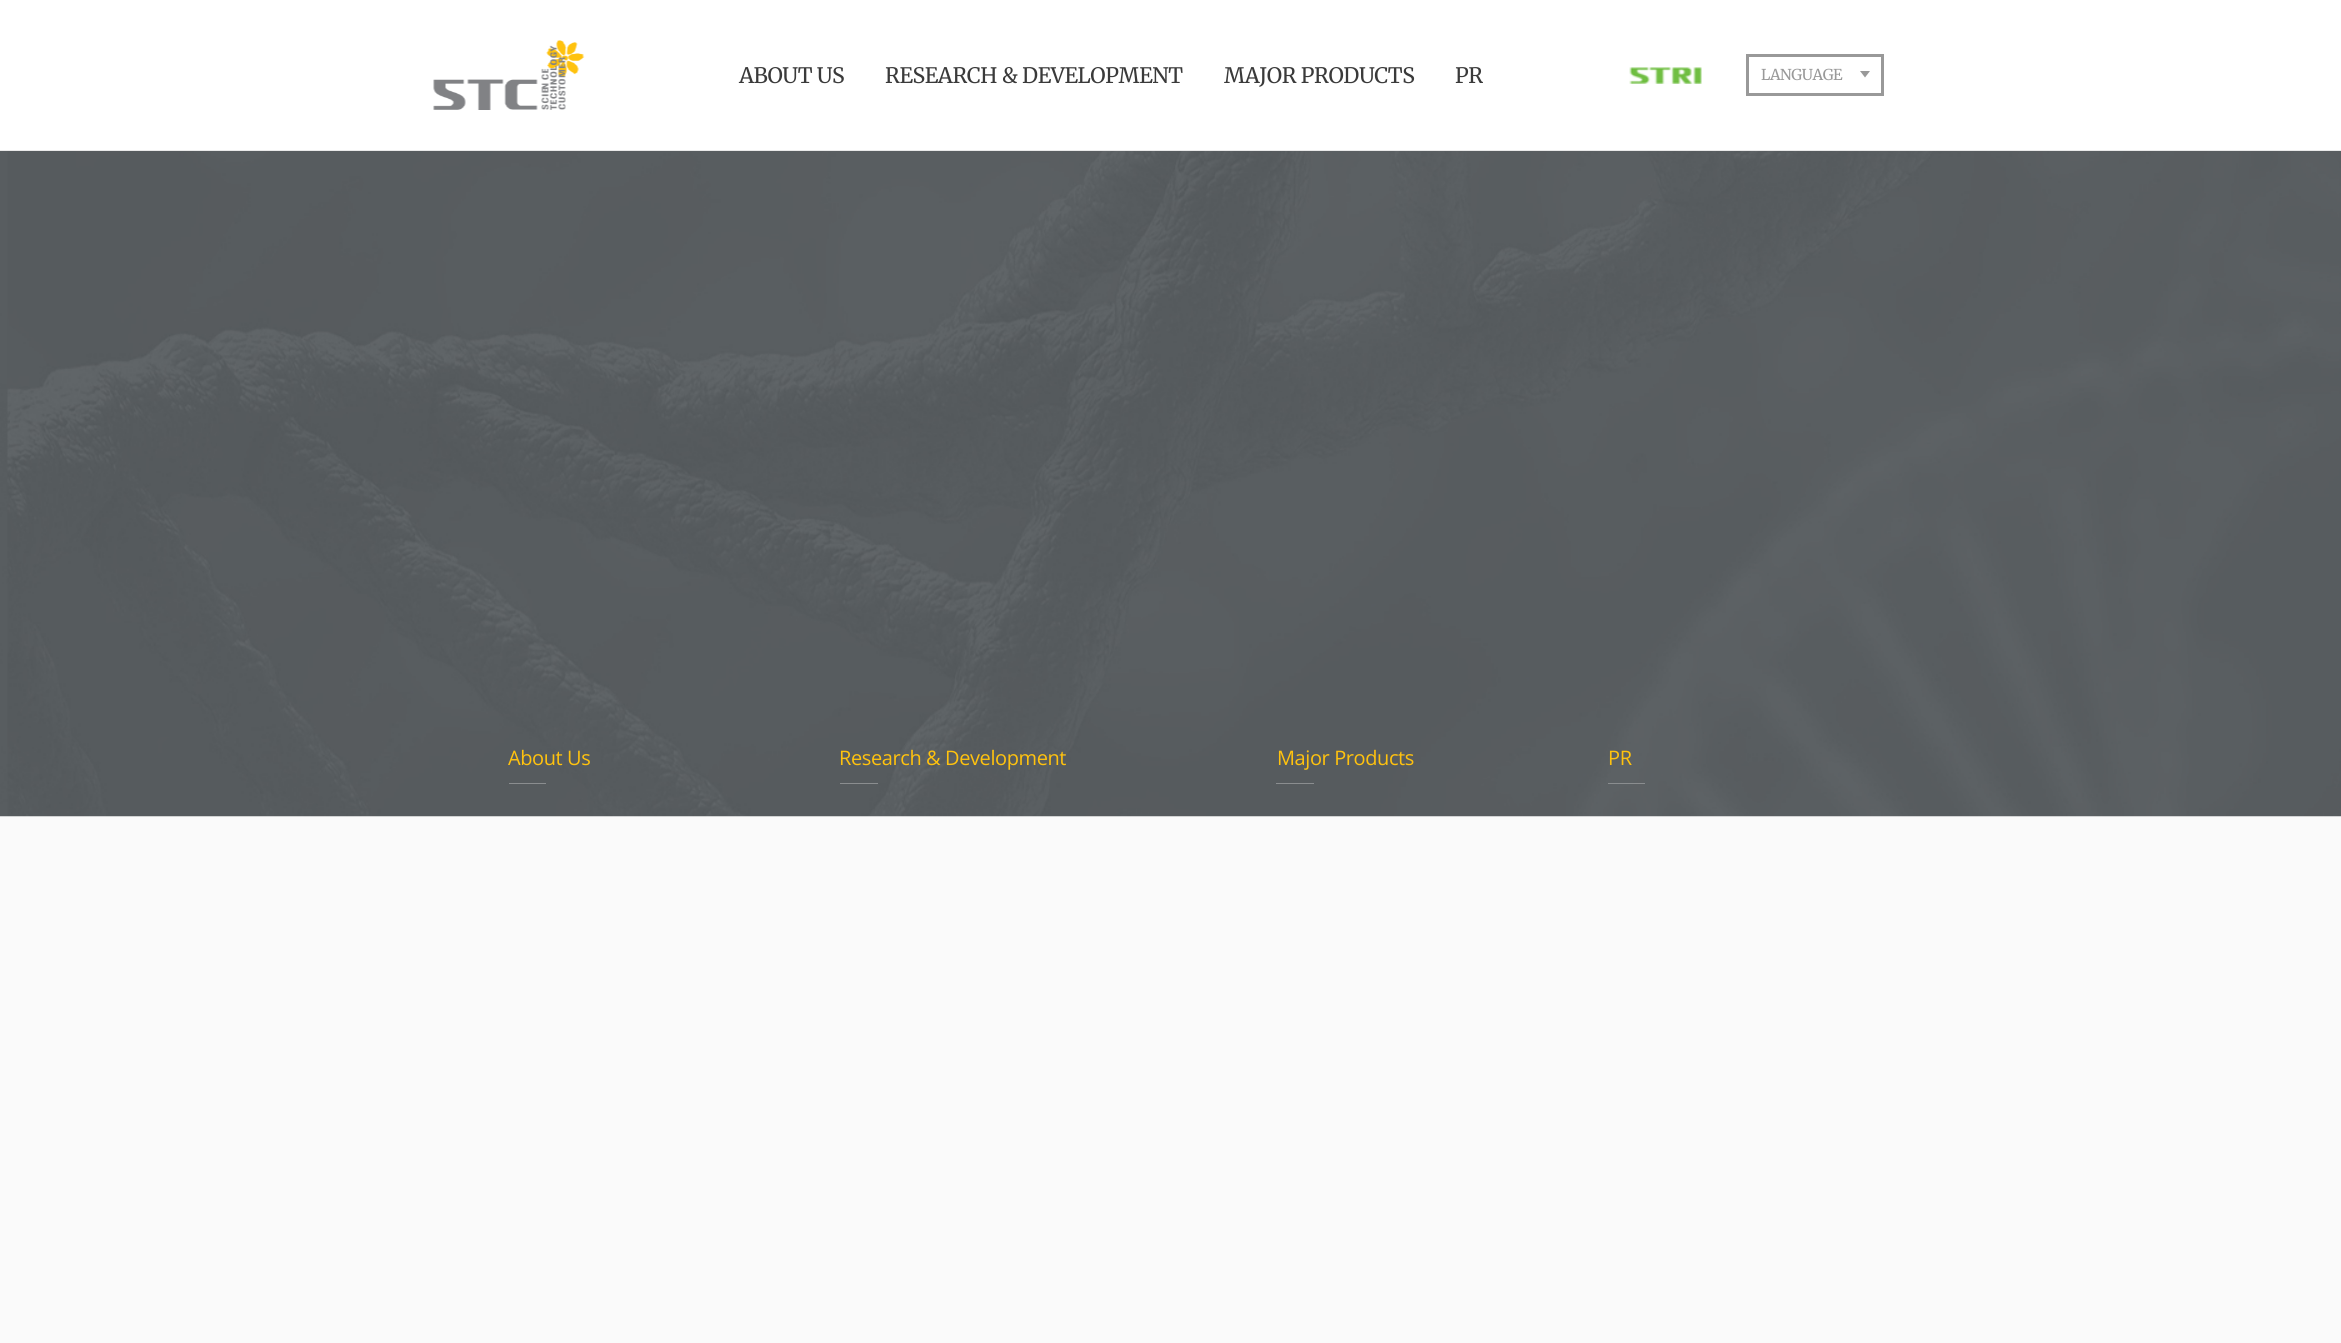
#include <cairo.h>
#include <math.h>
#include <stddef.h>

static cairo_t *ctx;

static void use_color(int r, int g, int b) {
    cairo_set_source_rgb(ctx, r / 255.0, g / 255.0, b / 255.0);
}

static void spaced_text(double x, double y, const char *s, double letter, double word) {
    cairo_move_to(ctx, x, y);
    while (*s) {
        char ch[5] = {0};
        int n = 0;
        do ch[n++] = *s++; while ((*s & 0xC0) == 0x80);
        cairo_show_text(ctx, ch);
        cairo_rel_move_to(ctx, letter + word * (*ch == ' '), 0);
    }
}

static void picture(const char *path, double x, double y, double w, double h) {
    cairo_surface_t *image = cairo_image_surface_create_from_png(path);
    cairo_save(ctx);
    cairo_set_source_surface(ctx, image, x, y);
    cairo_rectangle(ctx, x, y, w, h);
    cairo_fill(ctx);
    cairo_restore(ctx);
    cairo_surface_destroy(image);
}

int main(void) {
    cairo_surface_t *surface = cairo_image_surface_create(CAIRO_FORMAT_RGB24, 2341, 1343);
    ctx = cairo_create(surface);
    cairo_font_options_t *options = cairo_font_options_create();
    cairo_font_options_set_hint_metrics(options, CAIRO_HINT_METRICS_OFF);
    cairo_font_options_set_hint_style(options, CAIRO_HINT_STYLE_NONE);
    cairo_set_font_options(ctx, options);
    cairo_set_miter_limit(ctx, 4);
    use_color(250, 250, 250);
    cairo_paint(ctx);
    use_color(255, 255, 255);
    cairo_rectangle(ctx, 0, 0, 2341, 150);
    cairo_fill(ctx);
    use_color(233, 233, 233);
    cairo_rectangle(ctx, 0, 150, 2341, 1);
    cairo_fill(ctx);
    picture("img1.png", 433, 40, 152, 70);
    cairo_select_font_face(ctx, "Merriweather Light", CAIRO_FONT_SLANT_NORMAL, CAIRO_FONT_WEIGHT_NORMAL);
    cairo_set_font_size(ctx, 21.25);
    use_color(58, 58, 58);
    spaced_text(739, 83, "ABOUT US", -0.4, 0);
    spaced_text(885, 83, "RESEARCH & DEVELOPMENT", -0.4, 0);
    spaced_text(1224, 83, "MAJOR PRODUCTS", -0.4, 0);
    spaced_text(1455, 83, "PR", -0.4, 0);
    picture("img2.png", 1629, 67, 73, 17);
    cairo_rectangle(ctx, 1747.5, 55.5, 135, 39);
    use_color(153, 153, 153);
    cairo_set_line_width(ctx, 3);
    cairo_stroke(ctx);
    cairo_set_font_size(ctx, 15);
    spaced_text(1761, 80, "LANGUAGE", -0.4, 0);
    cairo_new_path(ctx);
    cairo_move_to(ctx, 1860, 71);
    cairo_line_to(ctx, 1870, 71);
    cairo_line_to(ctx, 1865, 77.5);
    cairo_close_path(ctx);
    cairo_fill(ctx);
    picture("img3.png", 0, 151, 2341, 666);
    cairo_select_font_face(ctx, "Open Sans", CAIRO_FONT_SLANT_NORMAL, CAIRO_FONT_WEIGHT_NORMAL);
    cairo_set_font_size(ctx, 20);
    use_color(255, 194, 14);
    spaced_text(508, 765, "About Us", -0.4, 0);
    use_color(138, 141, 143);
    cairo_rectangle(ctx, 509, 783, 37, 1);
    cairo_fill(ctx);
    use_color(255, 194, 14);
    spaced_text(839, 765, "Research & Development", -0.4, 0);
    use_color(138, 141, 143);
    cairo_rectangle(ctx, 840, 783, 38, 1);
    cairo_fill(ctx);
    use_color(255, 194, 14);
    spaced_text(1277, 765, "Major Products", -0.4, 0);
    use_color(138, 141, 143);
    cairo_rectangle(ctx, 1276, 783, 38, 1);
    cairo_fill(ctx);
    use_color(255, 194, 14);
    spaced_text(1608, 765, "PR", -0.4, 0);
    use_color(138, 141, 143);
    cairo_rectangle(ctx, 1608, 783, 37, 1);
    cairo_fill(ctx);
    cairo_surface_write_to_png(surface, "result.png");
    cairo_font_options_destroy(options);
    cairo_destroy(ctx);
    cairo_surface_destroy(surface);
    return 0;
}
